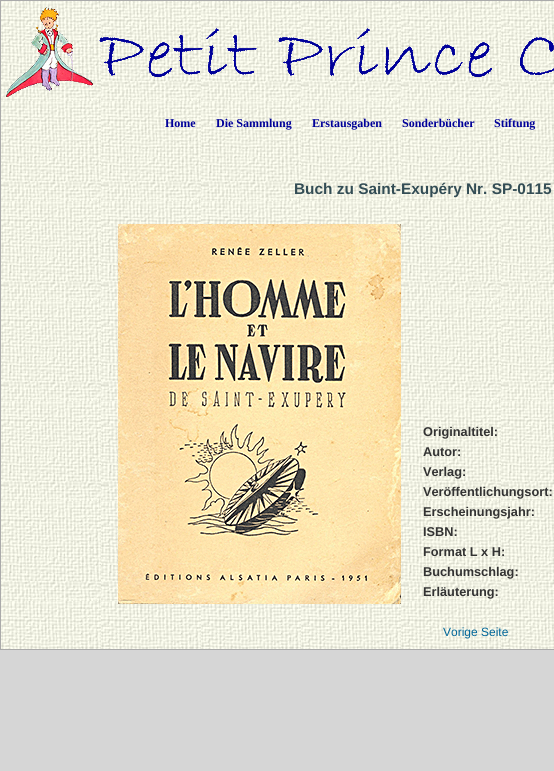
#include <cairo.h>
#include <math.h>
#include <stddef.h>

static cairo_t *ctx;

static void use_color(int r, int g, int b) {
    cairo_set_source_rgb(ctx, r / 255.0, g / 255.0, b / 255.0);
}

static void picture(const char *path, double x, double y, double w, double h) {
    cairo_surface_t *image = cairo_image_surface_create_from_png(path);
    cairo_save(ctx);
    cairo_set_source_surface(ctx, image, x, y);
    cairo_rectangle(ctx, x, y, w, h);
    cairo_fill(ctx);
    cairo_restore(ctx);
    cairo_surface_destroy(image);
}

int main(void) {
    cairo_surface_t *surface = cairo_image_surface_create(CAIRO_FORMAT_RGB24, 554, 771);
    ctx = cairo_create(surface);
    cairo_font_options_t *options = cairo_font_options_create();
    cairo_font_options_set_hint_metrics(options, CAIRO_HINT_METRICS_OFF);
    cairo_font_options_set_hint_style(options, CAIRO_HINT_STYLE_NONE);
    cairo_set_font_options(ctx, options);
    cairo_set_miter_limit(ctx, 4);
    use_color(214, 214, 214);
    cairo_paint(ctx);
    picture("img1.png", 1, 1, 553, 648);
    cairo_rectangle(ctx, 0.5, 0.5, 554, 649);
    use_color(170, 170, 170);
    cairo_set_line_width(ctx, 1);
    cairo_stroke(ctx);
    picture("img2.png", 6, 7, 548, 90);
    cairo_select_font_face(ctx, "Liberation Serif", CAIRO_FONT_SLANT_NORMAL, CAIRO_FONT_WEIGHT_BOLD);
    cairo_set_font_size(ctx, 12);
    use_color(0, 0, 153);
    cairo_move_to(ctx, 165, 127);
    cairo_show_text(ctx, "Home");
    cairo_move_to(ctx, 216, 127);
    cairo_show_text(ctx, "Die Sammlung");
    cairo_move_to(ctx, 312, 127);
    cairo_show_text(ctx, "Erstausgaben");
    cairo_move_to(ctx, 402, 127);
    cairo_show_text(ctx, "Sonderbücher");
    cairo_move_to(ctx, 494, 127);
    cairo_show_text(ctx, "Stiftung");
    cairo_select_font_face(ctx, "Liberation Sans", CAIRO_FONT_SLANT_NORMAL, CAIRO_FONT_WEIGHT_BOLD);
    cairo_set_font_size(ctx, 15.4);
    use_color(51, 77, 85);
    cairo_move_to(ctx, 294, 194);
    cairo_show_text(ctx, "Buch zu Saint-Exupéry Nr. SP-0115");
    picture("img3.png", 118, 224, 283, 380);
    cairo_set_font_size(ctx, 12.75);
    use_color(51, 51, 51);
    cairo_move_to(ctx, 423, 436);
    cairo_show_text(ctx, "Originaltitel:");
    cairo_move_to(ctx, 423, 456);
    cairo_show_text(ctx, "Autor:");
    cairo_move_to(ctx, 423, 476);
    cairo_show_text(ctx, "Verlag:");
    cairo_move_to(ctx, 423, 496);
    cairo_show_text(ctx, "Veröffentlichungsort:");
    cairo_move_to(ctx, 423, 516);
    cairo_show_text(ctx, "Erscheinungsjahr:");
    cairo_move_to(ctx, 423, 536);
    cairo_show_text(ctx, "ISBN:");
    cairo_move_to(ctx, 423, 556);
    cairo_show_text(ctx, "Format L x H:");
    cairo_move_to(ctx, 423, 576);
    cairo_show_text(ctx, "Buchumschlag:");
    cairo_move_to(ctx, 423, 596);
    cairo_show_text(ctx, "Erläuterung:");
    cairo_select_font_face(ctx, "Liberation Sans", CAIRO_FONT_SLANT_NORMAL, CAIRO_FONT_WEIGHT_NORMAL);
    cairo_set_font_size(ctx, 12);
    use_color(0, 102, 153);
    cairo_move_to(ctx, 443, 636);
    cairo_show_text(ctx, "Vorige Seite");
    cairo_surface_write_to_png(surface, "result.png");
    cairo_font_options_destroy(options);
    cairo_destroy(ctx);
    cairo_surface_destroy(surface);
    return 0;
}
